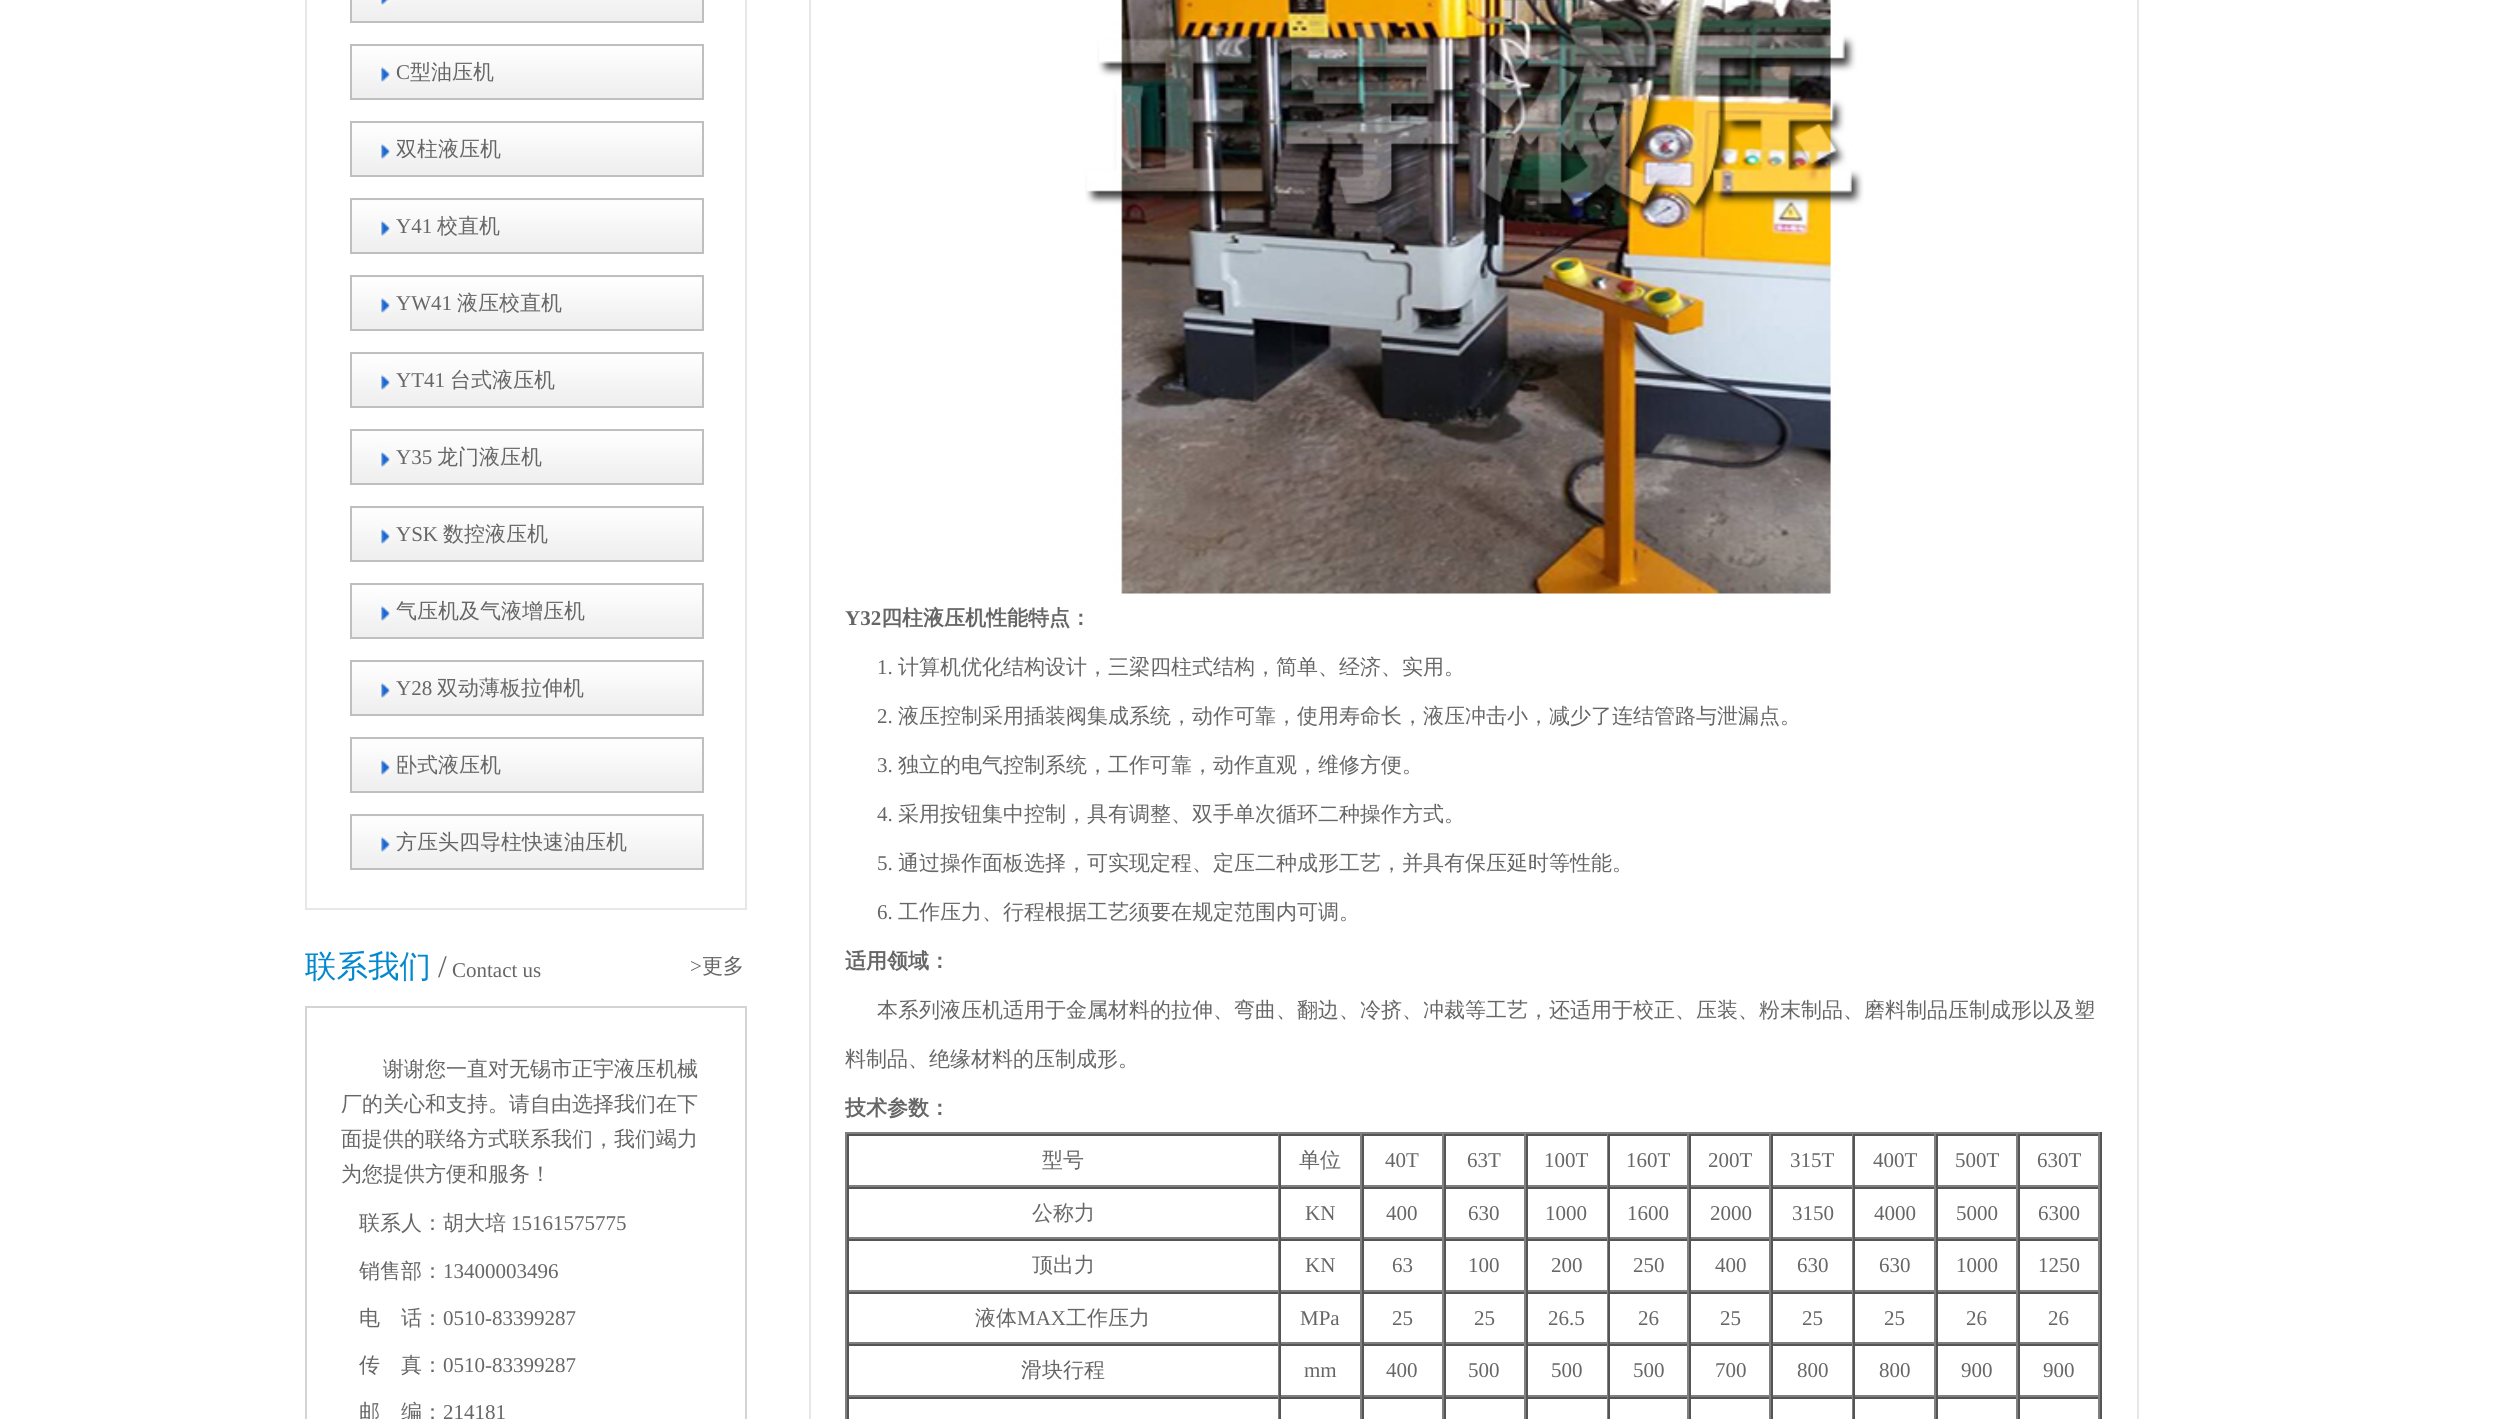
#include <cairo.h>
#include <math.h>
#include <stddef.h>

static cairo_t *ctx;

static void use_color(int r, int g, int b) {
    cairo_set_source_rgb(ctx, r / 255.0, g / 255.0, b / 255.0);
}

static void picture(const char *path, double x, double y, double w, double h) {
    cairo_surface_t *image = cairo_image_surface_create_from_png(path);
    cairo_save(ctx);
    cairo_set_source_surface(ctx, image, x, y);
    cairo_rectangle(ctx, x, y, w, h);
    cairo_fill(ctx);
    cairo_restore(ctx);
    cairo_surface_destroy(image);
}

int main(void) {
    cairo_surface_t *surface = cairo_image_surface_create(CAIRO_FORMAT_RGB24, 2499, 1419);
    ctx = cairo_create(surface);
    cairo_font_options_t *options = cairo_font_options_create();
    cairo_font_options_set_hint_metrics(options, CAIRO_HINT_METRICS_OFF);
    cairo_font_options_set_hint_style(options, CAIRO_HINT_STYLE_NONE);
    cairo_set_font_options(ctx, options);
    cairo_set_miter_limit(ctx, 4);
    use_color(255, 255, 255);
    cairo_paint(ctx);
    cairo_rectangle(ctx, 306, -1, 440, 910);
    use_color(233, 230, 230);
    cairo_stroke(ctx);
    picture("img1.png", 352, 0, 350, 21);
    cairo_rectangle(ctx, 351, -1, 352, 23);
    use_color(193, 190, 190);
    cairo_stroke(ctx);
    picture("img2.png", 352, 46, 350, 52);
    cairo_rectangle(ctx, 351, 45, 352, 54);
    cairo_stroke(ctx);
    cairo_select_font_face(ctx, "Liberation Serif", CAIRO_FONT_SLANT_NORMAL, CAIRO_FONT_WEIGHT_NORMAL);
    cairo_set_font_size(ctx, 21);
    use_color(102, 102, 102);
    cairo_move_to(ctx, 396, 79);
    cairo_show_text(ctx, "C");
    cairo_select_font_face(ctx, "WenQuanYi Zen Hei Medium", CAIRO_FONT_SLANT_NORMAL, CAIRO_FONT_WEIGHT_NORMAL);
    cairo_move_to(ctx, 410, 79);
    cairo_show_text(ctx, "型油压机");
    picture("img2.png", 352, 123, 350, 52);
    cairo_rectangle(ctx, 351, 122, 352, 54);
    use_color(193, 190, 190);
    cairo_stroke(ctx);
    use_color(102, 102, 102);
    cairo_move_to(ctx, 396, 156);
    cairo_show_text(ctx, "双柱液压机");
    picture("img2.png", 352, 200, 350, 52);
    cairo_rectangle(ctx, 351, 199, 352, 54);
    use_color(193, 190, 190);
    cairo_stroke(ctx);
    cairo_select_font_face(ctx, "Liberation Serif", CAIRO_FONT_SLANT_NORMAL, CAIRO_FONT_WEIGHT_NORMAL);
    use_color(102, 102, 102);
    cairo_move_to(ctx, 396, 233);
    cairo_show_text(ctx, "Y41");
    cairo_select_font_face(ctx, "WenQuanYi Zen Hei Medium", CAIRO_FONT_SLANT_NORMAL, CAIRO_FONT_WEIGHT_NORMAL);
    cairo_move_to(ctx, 437, 233);
    cairo_show_text(ctx, "校直机");
    picture("img2.png", 352, 277, 350, 52);
    cairo_rectangle(ctx, 351, 276, 352, 54);
    use_color(193, 190, 190);
    cairo_stroke(ctx);
    cairo_select_font_face(ctx, "Liberation Serif", CAIRO_FONT_SLANT_NORMAL, CAIRO_FONT_WEIGHT_NORMAL);
    use_color(102, 102, 102);
    cairo_move_to(ctx, 396, 310);
    cairo_show_text(ctx, "YW41");
    cairo_select_font_face(ctx, "WenQuanYi Zen Hei Medium", CAIRO_FONT_SLANT_NORMAL, CAIRO_FONT_WEIGHT_NORMAL);
    cairo_move_to(ctx, 457, 310);
    cairo_show_text(ctx, "液压校直机");
    picture("img2.png", 352, 354, 350, 52);
    cairo_rectangle(ctx, 351, 353, 352, 54);
    use_color(193, 190, 190);
    cairo_stroke(ctx);
    cairo_select_font_face(ctx, "Liberation Serif", CAIRO_FONT_SLANT_NORMAL, CAIRO_FONT_WEIGHT_NORMAL);
    use_color(102, 102, 102);
    cairo_move_to(ctx, 396, 387);
    cairo_show_text(ctx, "YT41");
    cairo_select_font_face(ctx, "WenQuanYi Zen Hei Medium", CAIRO_FONT_SLANT_NORMAL, CAIRO_FONT_WEIGHT_NORMAL);
    cairo_move_to(ctx, 450, 387);
    cairo_show_text(ctx, "台式液压机");
    picture("img2.png", 352, 431, 350, 52);
    cairo_rectangle(ctx, 351, 430, 352, 54);
    use_color(193, 190, 190);
    cairo_stroke(ctx);
    cairo_select_font_face(ctx, "Liberation Serif", CAIRO_FONT_SLANT_NORMAL, CAIRO_FONT_WEIGHT_NORMAL);
    use_color(102, 102, 102);
    cairo_move_to(ctx, 396, 464);
    cairo_show_text(ctx, "Y35");
    cairo_select_font_face(ctx, "WenQuanYi Zen Hei Medium", CAIRO_FONT_SLANT_NORMAL, CAIRO_FONT_WEIGHT_NORMAL);
    cairo_move_to(ctx, 437, 464);
    cairo_show_text(ctx, "龙门液压机");
    picture("img2.png", 352, 508, 350, 52);
    cairo_rectangle(ctx, 351, 507, 352, 54);
    use_color(193, 190, 190);
    cairo_stroke(ctx);
    cairo_select_font_face(ctx, "Liberation Serif", CAIRO_FONT_SLANT_NORMAL, CAIRO_FONT_WEIGHT_NORMAL);
    use_color(102, 102, 102);
    cairo_move_to(ctx, 396, 541);
    cairo_show_text(ctx, "YSK");
    cairo_select_font_face(ctx, "WenQuanYi Zen Hei Medium", CAIRO_FONT_SLANT_NORMAL, CAIRO_FONT_WEIGHT_NORMAL);
    cairo_move_to(ctx, 443, 541);
    cairo_show_text(ctx, "数控液压机");
    picture("img2.png", 352, 585, 350, 52);
    cairo_rectangle(ctx, 351, 584, 352, 54);
    use_color(193, 190, 190);
    cairo_stroke(ctx);
    use_color(102, 102, 102);
    cairo_move_to(ctx, 396, 618);
    cairo_show_text(ctx, "气压机及气液增压机");
    picture("img2.png", 352, 662, 350, 52);
    cairo_rectangle(ctx, 351, 661, 352, 54);
    use_color(193, 190, 190);
    cairo_stroke(ctx);
    cairo_select_font_face(ctx, "Liberation Serif", CAIRO_FONT_SLANT_NORMAL, CAIRO_FONT_WEIGHT_NORMAL);
    use_color(102, 102, 102);
    cairo_move_to(ctx, 396, 695);
    cairo_show_text(ctx, "Y28");
    cairo_select_font_face(ctx, "WenQuanYi Zen Hei Medium", CAIRO_FONT_SLANT_NORMAL, CAIRO_FONT_WEIGHT_NORMAL);
    cairo_move_to(ctx, 437, 695);
    cairo_show_text(ctx, "双动薄板拉伸机");
    picture("img2.png", 352, 739, 350, 52);
    cairo_rectangle(ctx, 351, 738, 352, 54);
    use_color(193, 190, 190);
    cairo_stroke(ctx);
    use_color(102, 102, 102);
    cairo_move_to(ctx, 396, 772);
    cairo_show_text(ctx, "卧式液压机");
    picture("img2.png", 352, 816, 350, 52);
    cairo_rectangle(ctx, 351, 815, 352, 54);
    use_color(193, 190, 190);
    cairo_stroke(ctx);
    use_color(102, 102, 102);
    cairo_move_to(ctx, 396, 849);
    cairo_show_text(ctx, "方压头四导柱快速油压机");
    cairo_set_font_size(ctx, 31.5);
    use_color(2, 136, 207);
    cairo_move_to(ctx, 305, 977);
    cairo_show_text(ctx, "联系我们");
    cairo_select_font_face(ctx, "Liberation Serif", CAIRO_FONT_SLANT_NORMAL, CAIRO_FONT_WEIGHT_NORMAL);
    use_color(102, 102, 102);
    cairo_move_to(ctx, 438, 977);
    cairo_show_text(ctx, "/");
    cairo_set_font_size(ctx, 21);
    cairo_move_to(ctx, 452, 977);
    cairo_show_text(ctx, "Contact us");
    cairo_move_to(ctx, 690, 973);
    cairo_show_text(ctx, ">");
    cairo_select_font_face(ctx, "WenQuanYi Zen Hei Medium", CAIRO_FONT_SLANT_NORMAL, CAIRO_FONT_WEIGHT_NORMAL);
    cairo_move_to(ctx, 702, 973);
    cairo_show_text(ctx, "更多");
    cairo_rectangle(ctx, 306, 1007, 440, 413);
    use_color(213, 211, 211);
    cairo_stroke(ctx);
    use_color(102, 102, 102);
    cairo_move_to(ctx, 383, 1076);
    cairo_show_text(ctx, "谢谢您一直对无锡市正宇液压机械");
    cairo_move_to(ctx, 341, 1111);
    cairo_show_text(ctx, "厂的关心和支持。请自由选择我们在下");
    cairo_move_to(ctx, 341, 1146);
    cairo_show_text(ctx, "面提供的联络方式联系我们，我们竭力");
    cairo_move_to(ctx, 341, 1181);
    cairo_show_text(ctx, "为您提供方便和服务！");
    cairo_move_to(ctx, 359, 1230);
    cairo_show_text(ctx, "联系人：胡大培");
    cairo_select_font_face(ctx, "Liberation Serif", CAIRO_FONT_SLANT_NORMAL, CAIRO_FONT_WEIGHT_NORMAL);
    cairo_move_to(ctx, 511, 1230);
    cairo_show_text(ctx, "15161575775");
    cairo_select_font_face(ctx, "WenQuanYi Zen Hei Medium", CAIRO_FONT_SLANT_NORMAL, CAIRO_FONT_WEIGHT_NORMAL);
    cairo_move_to(ctx, 359, 1278);
    cairo_show_text(ctx, "销售部：");
    cairo_select_font_face(ctx, "Liberation Serif", CAIRO_FONT_SLANT_NORMAL, CAIRO_FONT_WEIGHT_NORMAL);
    cairo_move_to(ctx, 443, 1278);
    cairo_show_text(ctx, "13400003496");
    cairo_select_font_face(ctx, "WenQuanYi Zen Hei Medium", CAIRO_FONT_SLANT_NORMAL, CAIRO_FONT_WEIGHT_NORMAL);
    cairo_move_to(ctx, 359, 1325);
    cairo_show_text(ctx, "电　话：");
    cairo_select_font_face(ctx, "Liberation Serif", CAIRO_FONT_SLANT_NORMAL, CAIRO_FONT_WEIGHT_NORMAL);
    cairo_move_to(ctx, 443, 1325);
    cairo_show_text(ctx, "0510-83399287");
    cairo_select_font_face(ctx, "WenQuanYi Zen Hei Medium", CAIRO_FONT_SLANT_NORMAL, CAIRO_FONT_WEIGHT_NORMAL);
    cairo_move_to(ctx, 359, 1372);
    cairo_show_text(ctx, "传　真：");
    cairo_select_font_face(ctx, "Liberation Serif", CAIRO_FONT_SLANT_NORMAL, CAIRO_FONT_WEIGHT_NORMAL);
    cairo_move_to(ctx, 443, 1372);
    cairo_show_text(ctx, "0510-83399287");
    cairo_select_font_face(ctx, "WenQuanYi Zen Hei Medium", CAIRO_FONT_SLANT_NORMAL, CAIRO_FONT_WEIGHT_NORMAL);
    cairo_move_to(ctx, 359, 1419);
    cairo_show_text(ctx, "邮　编：");
    cairo_select_font_face(ctx, "Liberation Serif", CAIRO_FONT_SLANT_NORMAL, CAIRO_FONT_WEIGHT_NORMAL);
    cairo_move_to(ctx, 443, 1419);
    cairo_show_text(ctx, "214181");
    cairo_rectangle(ctx, 810, -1, 1328, 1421);
    use_color(233, 230, 230);
    cairo_stroke(ctx);
    picture("img3.png", 1085, 0, 779, 594);
    cairo_select_font_face(ctx, "Liberation Serif", CAIRO_FONT_SLANT_NORMAL, CAIRO_FONT_WEIGHT_BOLD);
    use_color(102, 102, 102);
    cairo_move_to(ctx, 845, 625);
    cairo_show_text(ctx, "Y32");
    cairo_select_font_face(ctx, "WenQuanYi Zen Hei", CAIRO_FONT_SLANT_NORMAL, CAIRO_FONT_WEIGHT_BOLD);
    cairo_move_to(ctx, 881, 625);
    cairo_show_text(ctx, "四柱液压机性能特点：");
    cairo_select_font_face(ctx, "Liberation Serif", CAIRO_FONT_SLANT_NORMAL, CAIRO_FONT_WEIGHT_NORMAL);
    cairo_move_to(ctx, 877, 674);
    cairo_show_text(ctx, "1.");
    cairo_select_font_face(ctx, "WenQuanYi Zen Hei Medium", CAIRO_FONT_SLANT_NORMAL, CAIRO_FONT_WEIGHT_NORMAL);
    cairo_move_to(ctx, 898, 674);
    cairo_show_text(ctx, "计算机优化结构设计，三梁四柱式结构，简单、经济、实用。");
    cairo_select_font_face(ctx, "Liberation Serif", CAIRO_FONT_SLANT_NORMAL, CAIRO_FONT_WEIGHT_NORMAL);
    cairo_move_to(ctx, 877, 723);
    cairo_show_text(ctx, "2.");
    cairo_select_font_face(ctx, "WenQuanYi Zen Hei Medium", CAIRO_FONT_SLANT_NORMAL, CAIRO_FONT_WEIGHT_NORMAL);
    cairo_move_to(ctx, 898, 723);
    cairo_show_text(ctx, "液压控制采用插装阀集成系统，动作可靠，使用寿命长，液压冲击小，减少了连结管路与泄漏点。");
    cairo_select_font_face(ctx, "Liberation Serif", CAIRO_FONT_SLANT_NORMAL, CAIRO_FONT_WEIGHT_NORMAL);
    cairo_move_to(ctx, 877, 772);
    cairo_show_text(ctx, "3.");
    cairo_select_font_face(ctx, "WenQuanYi Zen Hei Medium", CAIRO_FONT_SLANT_NORMAL, CAIRO_FONT_WEIGHT_NORMAL);
    cairo_move_to(ctx, 898, 772);
    cairo_show_text(ctx, "独立的电气控制系统，工作可靠，动作直观，维修方便。");
    cairo_select_font_face(ctx, "Liberation Serif", CAIRO_FONT_SLANT_NORMAL, CAIRO_FONT_WEIGHT_NORMAL);
    cairo_move_to(ctx, 877, 821);
    cairo_show_text(ctx, "4.");
    cairo_select_font_face(ctx, "WenQuanYi Zen Hei Medium", CAIRO_FONT_SLANT_NORMAL, CAIRO_FONT_WEIGHT_NORMAL);
    cairo_move_to(ctx, 898, 821);
    cairo_show_text(ctx, "采用按钮集中控制，具有调整、双手单次循环二种操作方式。");
    cairo_select_font_face(ctx, "Liberation Serif", CAIRO_FONT_SLANT_NORMAL, CAIRO_FONT_WEIGHT_NORMAL);
    cairo_move_to(ctx, 877, 870);
    cairo_show_text(ctx, "5.");
    cairo_select_font_face(ctx, "WenQuanYi Zen Hei Medium", CAIRO_FONT_SLANT_NORMAL, CAIRO_FONT_WEIGHT_NORMAL);
    cairo_move_to(ctx, 898, 870);
    cairo_show_text(ctx, "通过操作面板选择，可实现定程、定压二种成形工艺，并具有保压延时等性能。");
    cairo_select_font_face(ctx, "Liberation Serif", CAIRO_FONT_SLANT_NORMAL, CAIRO_FONT_WEIGHT_NORMAL);
    cairo_move_to(ctx, 877, 919);
    cairo_show_text(ctx, "6.");
    cairo_select_font_face(ctx, "WenQuanYi Zen Hei Medium", CAIRO_FONT_SLANT_NORMAL, CAIRO_FONT_WEIGHT_NORMAL);
    cairo_move_to(ctx, 898, 919);
    cairo_show_text(ctx, "工作压力、行程根据工艺须要在规定范围内可调。");
    cairo_select_font_face(ctx, "WenQuanYi Zen Hei", CAIRO_FONT_SLANT_NORMAL, CAIRO_FONT_WEIGHT_BOLD);
    cairo_move_to(ctx, 845, 968);
    cairo_show_text(ctx, "适用领域：");
    cairo_select_font_face(ctx, "WenQuanYi Zen Hei Medium", CAIRO_FONT_SLANT_NORMAL, CAIRO_FONT_WEIGHT_NORMAL);
    cairo_move_to(ctx, 877, 1017);
    cairo_show_text(ctx, "本系列液压机适用于金属材料的拉伸、弯曲、翻边、冷挤、冲裁等工艺，还适用于校正、压装、粉末制品、磨料制品压制成形以及塑");
    cairo_move_to(ctx, 845, 1066);
    cairo_show_text(ctx, "料制品、绝缘材料的压制成形。");
    cairo_select_font_face(ctx, "WenQuanYi Zen Hei", CAIRO_FONT_SLANT_NORMAL, CAIRO_FONT_WEIGHT_BOLD);
    cairo_move_to(ctx, 845, 1115);
    cairo_show_text(ctx, "技术参数：");
    use_color(128, 128, 128);
    cairo_rectangle(ctx, 845, 1132, 1257, 2);
    cairo_fill(ctx);
    use_color(85, 85, 85);
    cairo_rectangle(ctx, 2100, 1132, 2, 287);
    cairo_fill(ctx);
    use_color(128, 128, 128);
    cairo_rectangle(ctx, 845, 1132, 2, 287);
    cairo_fill(ctx);
    use_color(85, 85, 85);
    cairo_rectangle(ctx, 847, 1134, 1253, 2);
    cairo_fill(ctx);
    use_color(128, 128, 128);
    cairo_rectangle(ctx, 1278, 1134, 1, 53);
    cairo_fill(ctx);
    cairo_rectangle(ctx, 847, 1185, 432, 2);
    cairo_fill(ctx);
    use_color(85, 85, 85);
    cairo_rectangle(ctx, 847, 1134, 2, 53);
    cairo_fill(ctx);
    cairo_select_font_face(ctx, "WenQuanYi Zen Hei Medium", CAIRO_FONT_SLANT_NORMAL, CAIRO_FONT_WEIGHT_NORMAL);
    use_color(102, 102, 102);
    cairo_move_to(ctx, 1042, 1167);
    cairo_show_text(ctx, "型号");
    use_color(128, 128, 128);
    cairo_rectangle(ctx, 1360, 1134, 2, 53);
    cairo_fill(ctx);
    cairo_rectangle(ctx, 1279, 1185, 83, 2);
    cairo_fill(ctx);
    use_color(85, 85, 85);
    cairo_rectangle(ctx, 1279, 1134, 2, 53);
    cairo_fill(ctx);
    use_color(102, 102, 102);
    cairo_move_to(ctx, 1299, 1167);
    cairo_show_text(ctx, "单位");
    use_color(128, 128, 128);
    cairo_rectangle(ctx, 1442, 1134, 2, 53);
    cairo_fill(ctx);
    cairo_rectangle(ctx, 1362, 1185, 82, 2);
    cairo_fill(ctx);
    use_color(85, 85, 85);
    cairo_rectangle(ctx, 1362, 1134, 2, 53);
    cairo_fill(ctx);
    cairo_select_font_face(ctx, "Liberation Serif", CAIRO_FONT_SLANT_NORMAL, CAIRO_FONT_WEIGHT_NORMAL);
    use_color(102, 102, 102);
    cairo_move_to(ctx, 1385, 1167);
    cairo_show_text(ctx, "40T");
    use_color(128, 128, 128);
    cairo_rectangle(ctx, 1524, 1134, 2, 53);
    cairo_fill(ctx);
    cairo_rectangle(ctx, 1444, 1185, 82, 2);
    cairo_fill(ctx);
    use_color(85, 85, 85);
    cairo_rectangle(ctx, 1444, 1134, 2, 53);
    cairo_fill(ctx);
    use_color(102, 102, 102);
    cairo_move_to(ctx, 1467, 1167);
    cairo_show_text(ctx, "63T");
    use_color(128, 128, 128);
    cairo_rectangle(ctx, 1607, 1134, 1, 53);
    cairo_fill(ctx);
    cairo_rectangle(ctx, 1526, 1185, 82, 2);
    cairo_fill(ctx);
    use_color(85, 85, 85);
    cairo_rectangle(ctx, 1526, 1134, 2, 53);
    cairo_fill(ctx);
    use_color(102, 102, 102);
    cairo_move_to(ctx, 1544, 1167);
    cairo_show_text(ctx, "100T");
    use_color(128, 128, 128);
    cairo_rectangle(ctx, 1687, 1134, 2, 53);
    cairo_fill(ctx);
    cairo_rectangle(ctx, 1608, 1185, 81, 2);
    cairo_fill(ctx);
    use_color(85, 85, 85);
    cairo_rectangle(ctx, 1608, 1134, 2, 53);
    cairo_fill(ctx);
    use_color(102, 102, 102);
    cairo_move_to(ctx, 1626, 1167);
    cairo_show_text(ctx, "160T");
    use_color(128, 128, 128);
    cairo_rectangle(ctx, 1769, 1134, 2, 53);
    cairo_fill(ctx);
    cairo_rectangle(ctx, 1689, 1185, 82, 2);
    cairo_fill(ctx);
    use_color(85, 85, 85);
    cairo_rectangle(ctx, 1689, 1134, 2, 53);
    cairo_fill(ctx);
    use_color(102, 102, 102);
    cairo_move_to(ctx, 1708, 1167);
    cairo_show_text(ctx, "200T");
    use_color(128, 128, 128);
    cairo_rectangle(ctx, 1852, 1134, 1, 53);
    cairo_fill(ctx);
    cairo_rectangle(ctx, 1771, 1185, 82, 2);
    cairo_fill(ctx);
    use_color(85, 85, 85);
    cairo_rectangle(ctx, 1771, 1134, 2, 53);
    cairo_fill(ctx);
    use_color(102, 102, 102);
    cairo_move_to(ctx, 1790, 1167);
    cairo_show_text(ctx, "315T");
    use_color(128, 128, 128);
    cairo_rectangle(ctx, 1934, 1134, 2, 53);
    cairo_fill(ctx);
    cairo_rectangle(ctx, 1853, 1185, 83, 2);
    cairo_fill(ctx);
    use_color(85, 85, 85);
    cairo_rectangle(ctx, 1853, 1134, 2, 53);
    cairo_fill(ctx);
    use_color(102, 102, 102);
    cairo_move_to(ctx, 1873, 1167);
    cairo_show_text(ctx, "400T");
    use_color(128, 128, 128);
    cairo_rectangle(ctx, 2016, 1134, 2, 53);
    cairo_fill(ctx);
    cairo_rectangle(ctx, 1936, 1185, 82, 2);
    cairo_fill(ctx);
    use_color(85, 85, 85);
    cairo_rectangle(ctx, 1936, 1134, 2, 53);
    cairo_fill(ctx);
    use_color(102, 102, 102);
    cairo_move_to(ctx, 1955, 1167);
    cairo_show_text(ctx, "500T");
    use_color(128, 128, 128);
    cairo_rectangle(ctx, 2098, 1134, 2, 53);
    cairo_fill(ctx);
    cairo_rectangle(ctx, 2018, 1185, 82, 2);
    cairo_fill(ctx);
    use_color(85, 85, 85);
    cairo_rectangle(ctx, 2018, 1134, 2, 53);
    cairo_fill(ctx);
    use_color(102, 102, 102);
    cairo_move_to(ctx, 2037, 1167);
    cairo_show_text(ctx, "630T");
    use_color(85, 85, 85);
    cairo_rectangle(ctx, 847, 1187, 1253, 2);
    cairo_fill(ctx);
    use_color(128, 128, 128);
    cairo_rectangle(ctx, 1278, 1187, 1, 52);
    cairo_fill(ctx);
    cairo_rectangle(ctx, 847, 1237, 432, 2);
    cairo_fill(ctx);
    use_color(85, 85, 85);
    cairo_rectangle(ctx, 847, 1187, 2, 52);
    cairo_fill(ctx);
    cairo_select_font_face(ctx, "WenQuanYi Zen Hei Medium", CAIRO_FONT_SLANT_NORMAL, CAIRO_FONT_WEIGHT_NORMAL);
    use_color(102, 102, 102);
    cairo_move_to(ctx, 1032, 1220);
    cairo_show_text(ctx, "公称力");
    use_color(128, 128, 128);
    cairo_rectangle(ctx, 1360, 1187, 2, 52);
    cairo_fill(ctx);
    cairo_rectangle(ctx, 1279, 1237, 83, 2);
    cairo_fill(ctx);
    use_color(85, 85, 85);
    cairo_rectangle(ctx, 1279, 1187, 2, 52);
    cairo_fill(ctx);
    cairo_select_font_face(ctx, "Liberation Serif", CAIRO_FONT_SLANT_NORMAL, CAIRO_FONT_WEIGHT_NORMAL);
    use_color(102, 102, 102);
    cairo_move_to(ctx, 1305, 1220);
    cairo_show_text(ctx, "KN");
    use_color(128, 128, 128);
    cairo_rectangle(ctx, 1442, 1187, 2, 52);
    cairo_fill(ctx);
    cairo_rectangle(ctx, 1362, 1237, 82, 2);
    cairo_fill(ctx);
    use_color(85, 85, 85);
    cairo_rectangle(ctx, 1362, 1187, 2, 52);
    cairo_fill(ctx);
    use_color(102, 102, 102);
    cairo_move_to(ctx, 1386, 1220);
    cairo_show_text(ctx, "400");
    use_color(128, 128, 128);
    cairo_rectangle(ctx, 1524, 1187, 2, 52);
    cairo_fill(ctx);
    cairo_rectangle(ctx, 1444, 1237, 82, 2);
    cairo_fill(ctx);
    use_color(85, 85, 85);
    cairo_rectangle(ctx, 1444, 1187, 2, 52);
    cairo_fill(ctx);
    use_color(102, 102, 102);
    cairo_move_to(ctx, 1468, 1220);
    cairo_show_text(ctx, "630");
    use_color(128, 128, 128);
    cairo_rectangle(ctx, 1607, 1187, 1, 52);
    cairo_fill(ctx);
    cairo_rectangle(ctx, 1526, 1237, 82, 2);
    cairo_fill(ctx);
    use_color(85, 85, 85);
    cairo_rectangle(ctx, 1526, 1187, 2, 52);
    cairo_fill(ctx);
    use_color(102, 102, 102);
    cairo_move_to(ctx, 1545, 1220);
    cairo_show_text(ctx, "1000");
    use_color(128, 128, 128);
    cairo_rectangle(ctx, 1687, 1187, 2, 52);
    cairo_fill(ctx);
    cairo_rectangle(ctx, 1608, 1237, 81, 2);
    cairo_fill(ctx);
    use_color(85, 85, 85);
    cairo_rectangle(ctx, 1608, 1187, 2, 52);
    cairo_fill(ctx);
    use_color(102, 102, 102);
    cairo_move_to(ctx, 1627, 1220);
    cairo_show_text(ctx, "1600");
    use_color(128, 128, 128);
    cairo_rectangle(ctx, 1769, 1187, 2, 52);
    cairo_fill(ctx);
    cairo_rectangle(ctx, 1689, 1237, 82, 2);
    cairo_fill(ctx);
    use_color(85, 85, 85);
    cairo_rectangle(ctx, 1689, 1187, 2, 52);
    cairo_fill(ctx);
    use_color(102, 102, 102);
    cairo_move_to(ctx, 1710, 1220);
    cairo_show_text(ctx, "2000");
    use_color(128, 128, 128);
    cairo_rectangle(ctx, 1852, 1187, 1, 52);
    cairo_fill(ctx);
    cairo_rectangle(ctx, 1771, 1237, 82, 2);
    cairo_fill(ctx);
    use_color(85, 85, 85);
    cairo_rectangle(ctx, 1771, 1187, 2, 52);
    cairo_fill(ctx);
    use_color(102, 102, 102);
    cairo_move_to(ctx, 1792, 1220);
    cairo_show_text(ctx, "3150");
    use_color(128, 128, 128);
    cairo_rectangle(ctx, 1934, 1187, 2, 52);
    cairo_fill(ctx);
    cairo_rectangle(ctx, 1853, 1237, 83, 2);
    cairo_fill(ctx);
    use_color(85, 85, 85);
    cairo_rectangle(ctx, 1853, 1187, 2, 52);
    cairo_fill(ctx);
    use_color(102, 102, 102);
    cairo_move_to(ctx, 1874, 1220);
    cairo_show_text(ctx, "4000");
    use_color(128, 128, 128);
    cairo_rectangle(ctx, 2016, 1187, 2, 52);
    cairo_fill(ctx);
    cairo_rectangle(ctx, 1936, 1237, 82, 2);
    cairo_fill(ctx);
    use_color(85, 85, 85);
    cairo_rectangle(ctx, 1936, 1187, 2, 52);
    cairo_fill(ctx);
    use_color(102, 102, 102);
    cairo_move_to(ctx, 1956, 1220);
    cairo_show_text(ctx, "5000");
    use_color(128, 128, 128);
    cairo_rectangle(ctx, 2098, 1187, 2, 52);
    cairo_fill(ctx);
    cairo_rectangle(ctx, 2018, 1237, 82, 2);
    cairo_fill(ctx);
    use_color(85, 85, 85);
    cairo_rectangle(ctx, 2018, 1187, 2, 52);
    cairo_fill(ctx);
    use_color(102, 102, 102);
    cairo_move_to(ctx, 2038, 1220);
    cairo_show_text(ctx, "6300");
    use_color(85, 85, 85);
    cairo_rectangle(ctx, 847, 1239, 1253, 2);
    cairo_fill(ctx);
    use_color(128, 128, 128);
    cairo_rectangle(ctx, 1278, 1239, 1, 53);
    cairo_fill(ctx);
    cairo_rectangle(ctx, 847, 1290, 432, 2);
    cairo_fill(ctx);
    use_color(85, 85, 85);
    cairo_rectangle(ctx, 847, 1239, 2, 53);
    cairo_fill(ctx);
    cairo_select_font_face(ctx, "WenQuanYi Zen Hei Medium", CAIRO_FONT_SLANT_NORMAL, CAIRO_FONT_WEIGHT_NORMAL);
    use_color(102, 102, 102);
    cairo_move_to(ctx, 1032, 1272);
    cairo_show_text(ctx, "顶出力");
    use_color(128, 128, 128);
    cairo_rectangle(ctx, 1360, 1239, 2, 53);
    cairo_fill(ctx);
    cairo_rectangle(ctx, 1279, 1290, 83, 2);
    cairo_fill(ctx);
    use_color(85, 85, 85);
    cairo_rectangle(ctx, 1279, 1239, 2, 53);
    cairo_fill(ctx);
    cairo_select_font_face(ctx, "Liberation Serif", CAIRO_FONT_SLANT_NORMAL, CAIRO_FONT_WEIGHT_NORMAL);
    use_color(102, 102, 102);
    cairo_move_to(ctx, 1305, 1272);
    cairo_show_text(ctx, "KN");
    use_color(128, 128, 128);
    cairo_rectangle(ctx, 1442, 1239, 2, 53);
    cairo_fill(ctx);
    cairo_rectangle(ctx, 1362, 1290, 82, 2);
    cairo_fill(ctx);
    use_color(85, 85, 85);
    cairo_rectangle(ctx, 1362, 1239, 2, 53);
    cairo_fill(ctx);
    use_color(102, 102, 102);
    cairo_move_to(ctx, 1392, 1272);
    cairo_show_text(ctx, "63");
    use_color(128, 128, 128);
    cairo_rectangle(ctx, 1524, 1239, 2, 53);
    cairo_fill(ctx);
    cairo_rectangle(ctx, 1444, 1290, 82, 2);
    cairo_fill(ctx);
    use_color(85, 85, 85);
    cairo_rectangle(ctx, 1444, 1239, 2, 53);
    cairo_fill(ctx);
    use_color(102, 102, 102);
    cairo_move_to(ctx, 1468, 1272);
    cairo_show_text(ctx, "100");
    use_color(128, 128, 128);
    cairo_rectangle(ctx, 1607, 1239, 1, 53);
    cairo_fill(ctx);
    cairo_rectangle(ctx, 1526, 1290, 82, 2);
    cairo_fill(ctx);
    use_color(85, 85, 85);
    cairo_rectangle(ctx, 1526, 1239, 2, 53);
    cairo_fill(ctx);
    use_color(102, 102, 102);
    cairo_move_to(ctx, 1551, 1272);
    cairo_show_text(ctx, "200");
    use_color(128, 128, 128);
    cairo_rectangle(ctx, 1687, 1239, 2, 53);
    cairo_fill(ctx);
    cairo_rectangle(ctx, 1608, 1290, 81, 2);
    cairo_fill(ctx);
    use_color(85, 85, 85);
    cairo_rectangle(ctx, 1608, 1239, 2, 53);
    cairo_fill(ctx);
    use_color(102, 102, 102);
    cairo_move_to(ctx, 1633, 1272);
    cairo_show_text(ctx, "250");
    use_color(128, 128, 128);
    cairo_rectangle(ctx, 1769, 1239, 2, 53);
    cairo_fill(ctx);
    cairo_rectangle(ctx, 1689, 1290, 82, 2);
    cairo_fill(ctx);
    use_color(85, 85, 85);
    cairo_rectangle(ctx, 1689, 1239, 2, 53);
    cairo_fill(ctx);
    use_color(102, 102, 102);
    cairo_move_to(ctx, 1715, 1272);
    cairo_show_text(ctx, "400");
    use_color(128, 128, 128);
    cairo_rectangle(ctx, 1852, 1239, 1, 53);
    cairo_fill(ctx);
    cairo_rectangle(ctx, 1771, 1290, 82, 2);
    cairo_fill(ctx);
    use_color(85, 85, 85);
    cairo_rectangle(ctx, 1771, 1239, 2, 53);
    cairo_fill(ctx);
    use_color(102, 102, 102);
    cairo_move_to(ctx, 1797, 1272);
    cairo_show_text(ctx, "630");
    use_color(128, 128, 128);
    cairo_rectangle(ctx, 1934, 1239, 2, 53);
    cairo_fill(ctx);
    cairo_rectangle(ctx, 1853, 1290, 83, 2);
    cairo_fill(ctx);
    use_color(85, 85, 85);
    cairo_rectangle(ctx, 1853, 1239, 2, 53);
    cairo_fill(ctx);
    use_color(102, 102, 102);
    cairo_move_to(ctx, 1879, 1272);
    cairo_show_text(ctx, "630");
    use_color(128, 128, 128);
    cairo_rectangle(ctx, 2016, 1239, 2, 53);
    cairo_fill(ctx);
    cairo_rectangle(ctx, 1936, 1290, 82, 2);
    cairo_fill(ctx);
    use_color(85, 85, 85);
    cairo_rectangle(ctx, 1936, 1239, 2, 53);
    cairo_fill(ctx);
    use_color(102, 102, 102);
    cairo_move_to(ctx, 1956, 1272);
    cairo_show_text(ctx, "1000");
    use_color(128, 128, 128);
    cairo_rectangle(ctx, 2098, 1239, 2, 53);
    cairo_fill(ctx);
    cairo_rectangle(ctx, 2018, 1290, 82, 2);
    cairo_fill(ctx);
    use_color(85, 85, 85);
    cairo_rectangle(ctx, 2018, 1239, 2, 53);
    cairo_fill(ctx);
    use_color(102, 102, 102);
    cairo_move_to(ctx, 2038, 1272);
    cairo_show_text(ctx, "1250");
    use_color(85, 85, 85);
    cairo_rectangle(ctx, 847, 1292, 1253, 2);
    cairo_fill(ctx);
    use_color(128, 128, 128);
    cairo_rectangle(ctx, 1278, 1292, 1, 52);
    cairo_fill(ctx);
    cairo_rectangle(ctx, 847, 1342, 432, 2);
    cairo_fill(ctx);
    use_color(85, 85, 85);
    cairo_rectangle(ctx, 847, 1292, 2, 52);
    cairo_fill(ctx);
    cairo_select_font_face(ctx, "WenQuanYi Zen Hei Medium", CAIRO_FONT_SLANT_NORMAL, CAIRO_FONT_WEIGHT_NORMAL);
    use_color(102, 102, 102);
    cairo_move_to(ctx, 975, 1325);
    cairo_show_text(ctx, "液体");
    cairo_select_font_face(ctx, "Liberation Serif", CAIRO_FONT_SLANT_NORMAL, CAIRO_FONT_WEIGHT_NORMAL);
    cairo_move_to(ctx, 1017, 1325);
    cairo_show_text(ctx, "MAX");
    cairo_select_font_face(ctx, "WenQuanYi Zen Hei Medium", CAIRO_FONT_SLANT_NORMAL, CAIRO_FONT_WEIGHT_NORMAL);
    cairo_move_to(ctx, 1066, 1325);
    cairo_show_text(ctx, "工作压力");
    use_color(128, 128, 128);
    cairo_rectangle(ctx, 1360, 1292, 2, 52);
    cairo_fill(ctx);
    cairo_rectangle(ctx, 1279, 1342, 83, 2);
    cairo_fill(ctx);
    use_color(85, 85, 85);
    cairo_rectangle(ctx, 1279, 1292, 2, 52);
    cairo_fill(ctx);
    cairo_select_font_face(ctx, "Liberation Serif", CAIRO_FONT_SLANT_NORMAL, CAIRO_FONT_WEIGHT_NORMAL);
    use_color(102, 102, 102);
    cairo_move_to(ctx, 1300, 1325);
    cairo_show_text(ctx, "MPa");
    use_color(128, 128, 128);
    cairo_rectangle(ctx, 1442, 1292, 2, 52);
    cairo_fill(ctx);
    cairo_rectangle(ctx, 1362, 1342, 82, 2);
    cairo_fill(ctx);
    use_color(85, 85, 85);
    cairo_rectangle(ctx, 1362, 1292, 2, 52);
    cairo_fill(ctx);
    use_color(102, 102, 102);
    cairo_move_to(ctx, 1392, 1325);
    cairo_show_text(ctx, "25");
    use_color(128, 128, 128);
    cairo_rectangle(ctx, 1524, 1292, 2, 52);
    cairo_fill(ctx);
    cairo_rectangle(ctx, 1444, 1342, 82, 2);
    cairo_fill(ctx);
    use_color(85, 85, 85);
    cairo_rectangle(ctx, 1444, 1292, 2, 52);
    cairo_fill(ctx);
    use_color(102, 102, 102);
    cairo_move_to(ctx, 1474, 1325);
    cairo_show_text(ctx, "25");
    use_color(128, 128, 128);
    cairo_rectangle(ctx, 1607, 1292, 1, 52);
    cairo_fill(ctx);
    cairo_rectangle(ctx, 1526, 1342, 82, 2);
    cairo_fill(ctx);
    use_color(85, 85, 85);
    cairo_rectangle(ctx, 1526, 1292, 2, 52);
    cairo_fill(ctx);
    use_color(102, 102, 102);
    cairo_move_to(ctx, 1548, 1325);
    cairo_show_text(ctx, "26.5");
    use_color(128, 128, 128);
    cairo_rectangle(ctx, 1687, 1292, 2, 52);
    cairo_fill(ctx);
    cairo_rectangle(ctx, 1608, 1342, 81, 2);
    cairo_fill(ctx);
    use_color(85, 85, 85);
    cairo_rectangle(ctx, 1608, 1292, 2, 52);
    cairo_fill(ctx);
    use_color(102, 102, 102);
    cairo_move_to(ctx, 1638, 1325);
    cairo_show_text(ctx, "26");
    use_color(128, 128, 128);
    cairo_rectangle(ctx, 1769, 1292, 2, 52);
    cairo_fill(ctx);
    cairo_rectangle(ctx, 1689, 1342, 82, 2);
    cairo_fill(ctx);
    use_color(85, 85, 85);
    cairo_rectangle(ctx, 1689, 1292, 2, 52);
    cairo_fill(ctx);
    use_color(102, 102, 102);
    cairo_move_to(ctx, 1720, 1325);
    cairo_show_text(ctx, "25");
    use_color(128, 128, 128);
    cairo_rectangle(ctx, 1852, 1292, 1, 52);
    cairo_fill(ctx);
    cairo_rectangle(ctx, 1771, 1342, 82, 2);
    cairo_fill(ctx);
    use_color(85, 85, 85);
    cairo_rectangle(ctx, 1771, 1292, 2, 52);
    cairo_fill(ctx);
    use_color(102, 102, 102);
    cairo_move_to(ctx, 1802, 1325);
    cairo_show_text(ctx, "25");
    use_color(128, 128, 128);
    cairo_rectangle(ctx, 1934, 1292, 2, 52);
    cairo_fill(ctx);
    cairo_rectangle(ctx, 1853, 1342, 83, 2);
    cairo_fill(ctx);
    use_color(85, 85, 85);
    cairo_rectangle(ctx, 1853, 1292, 2, 52);
    cairo_fill(ctx);
    use_color(102, 102, 102);
    cairo_move_to(ctx, 1884, 1325);
    cairo_show_text(ctx, "25");
    use_color(128, 128, 128);
    cairo_rectangle(ctx, 2016, 1292, 2, 52);
    cairo_fill(ctx);
    cairo_rectangle(ctx, 1936, 1342, 82, 2);
    cairo_fill(ctx);
    use_color(85, 85, 85);
    cairo_rectangle(ctx, 1936, 1292, 2, 52);
    cairo_fill(ctx);
    use_color(102, 102, 102);
    cairo_move_to(ctx, 1966, 1325);
    cairo_show_text(ctx, "26");
    use_color(128, 128, 128);
    cairo_rectangle(ctx, 2098, 1292, 2, 52);
    cairo_fill(ctx);
    cairo_rectangle(ctx, 2018, 1342, 82, 2);
    cairo_fill(ctx);
    use_color(85, 85, 85);
    cairo_rectangle(ctx, 2018, 1292, 2, 52);
    cairo_fill(ctx);
    use_color(102, 102, 102);
    cairo_move_to(ctx, 2048, 1325);
    cairo_show_text(ctx, "26");
    use_color(85, 85, 85);
    cairo_rectangle(ctx, 847, 1344, 1253, 2);
    cairo_fill(ctx);
    use_color(128, 128, 128);
    cairo_rectangle(ctx, 1278, 1344, 1, 53);
    cairo_fill(ctx);
    cairo_rectangle(ctx, 847, 1395, 432, 2);
    cairo_fill(ctx);
    use_color(85, 85, 85);
    cairo_rectangle(ctx, 847, 1344, 2, 53);
    cairo_fill(ctx);
    cairo_select_font_face(ctx, "WenQuanYi Zen Hei Medium", CAIRO_FONT_SLANT_NORMAL, CAIRO_FONT_WEIGHT_NORMAL);
    use_color(102, 102, 102);
    cairo_move_to(ctx, 1021, 1377);
    cairo_show_text(ctx, "滑块行程");
    use_color(128, 128, 128);
    cairo_rectangle(ctx, 1360, 1344, 2, 53);
    cairo_fill(ctx);
    cairo_rectangle(ctx, 1279, 1395, 83, 2);
    cairo_fill(ctx);
    use_color(85, 85, 85);
    cairo_rectangle(ctx, 1279, 1344, 2, 53);
    cairo_fill(ctx);
    cairo_select_font_face(ctx, "Liberation Serif", CAIRO_FONT_SLANT_NORMAL, CAIRO_FONT_WEIGHT_NORMAL);
    use_color(102, 102, 102);
    cairo_move_to(ctx, 1304, 1377);
    cairo_show_text(ctx, "mm");
    use_color(128, 128, 128);
    cairo_rectangle(ctx, 1442, 1344, 2, 53);
    cairo_fill(ctx);
    cairo_rectangle(ctx, 1362, 1395, 82, 2);
    cairo_fill(ctx);
    use_color(85, 85, 85);
    cairo_rectangle(ctx, 1362, 1344, 2, 53);
    cairo_fill(ctx);
    use_color(102, 102, 102);
    cairo_move_to(ctx, 1386, 1377);
    cairo_show_text(ctx, "400");
    use_color(128, 128, 128);
    cairo_rectangle(ctx, 1524, 1344, 2, 53);
    cairo_fill(ctx);
    cairo_rectangle(ctx, 1444, 1395, 82, 2);
    cairo_fill(ctx);
    use_color(85, 85, 85);
    cairo_rectangle(ctx, 1444, 1344, 2, 53);
    cairo_fill(ctx);
    use_color(102, 102, 102);
    cairo_move_to(ctx, 1468, 1377);
    cairo_show_text(ctx, "500");
    use_color(128, 128, 128);
    cairo_rectangle(ctx, 1607, 1344, 1, 53);
    cairo_fill(ctx);
    cairo_rectangle(ctx, 1526, 1395, 82, 2);
    cairo_fill(ctx);
    use_color(85, 85, 85);
    cairo_rectangle(ctx, 1526, 1344, 2, 53);
    cairo_fill(ctx);
    use_color(102, 102, 102);
    cairo_move_to(ctx, 1551, 1377);
    cairo_show_text(ctx, "500");
    use_color(128, 128, 128);
    cairo_rectangle(ctx, 1687, 1344, 2, 53);
    cairo_fill(ctx);
    cairo_rectangle(ctx, 1608, 1395, 81, 2);
    cairo_fill(ctx);
    use_color(85, 85, 85);
    cairo_rectangle(ctx, 1608, 1344, 2, 53);
    cairo_fill(ctx);
    use_color(102, 102, 102);
    cairo_move_to(ctx, 1633, 1377);
    cairo_show_text(ctx, "500");
    use_color(128, 128, 128);
    cairo_rectangle(ctx, 1769, 1344, 2, 53);
    cairo_fill(ctx);
    cairo_rectangle(ctx, 1689, 1395, 82, 2);
    cairo_fill(ctx);
    use_color(85, 85, 85);
    cairo_rectangle(ctx, 1689, 1344, 2, 53);
    cairo_fill(ctx);
    use_color(102, 102, 102);
    cairo_move_to(ctx, 1715, 1377);
    cairo_show_text(ctx, "700");
    use_color(128, 128, 128);
    cairo_rectangle(ctx, 1852, 1344, 1, 53);
    cairo_fill(ctx);
    cairo_rectangle(ctx, 1771, 1395, 82, 2);
    cairo_fill(ctx);
    use_color(85, 85, 85);
    cairo_rectangle(ctx, 1771, 1344, 2, 53);
    cairo_fill(ctx);
    use_color(102, 102, 102);
    cairo_move_to(ctx, 1797, 1377);
    cairo_show_text(ctx, "800");
    use_color(128, 128, 128);
    cairo_rectangle(ctx, 1934, 1344, 2, 53);
    cairo_fill(ctx);
    cairo_rectangle(ctx, 1853, 1395, 83, 2);
    cairo_fill(ctx);
    use_color(85, 85, 85);
    cairo_rectangle(ctx, 1853, 1344, 2, 53);
    cairo_fill(ctx);
    use_color(102, 102, 102);
    cairo_move_to(ctx, 1879, 1377);
    cairo_show_text(ctx, "800");
    use_color(128, 128, 128);
    cairo_rectangle(ctx, 2016, 1344, 2, 53);
    cairo_fill(ctx);
    cairo_rectangle(ctx, 1936, 1395, 82, 2);
    cairo_fill(ctx);
    use_color(85, 85, 85);
    cairo_rectangle(ctx, 1936, 1344, 2, 53);
    cairo_fill(ctx);
    use_color(102, 102, 102);
    cairo_move_to(ctx, 1961, 1377);
    cairo_show_text(ctx, "900");
    use_color(128, 128, 128);
    cairo_rectangle(ctx, 2098, 1344, 2, 53);
    cairo_fill(ctx);
    cairo_rectangle(ctx, 2018, 1395, 82, 2);
    cairo_fill(ctx);
    use_color(85, 85, 85);
    cairo_rectangle(ctx, 2018, 1344, 2, 53);
    cairo_fill(ctx);
    use_color(102, 102, 102);
    cairo_move_to(ctx, 2043, 1377);
    cairo_show_text(ctx, "900");
    use_color(85, 85, 85);
    cairo_rectangle(ctx, 847, 1397, 1253, 2);
    cairo_fill(ctx);
    use_color(128, 128, 128);
    cairo_rectangle(ctx, 1278, 1397, 1, 22);
    cairo_fill(ctx);
    use_color(85, 85, 85);
    cairo_rectangle(ctx, 847, 1397, 2, 22);
    cairo_fill(ctx);
    use_color(128, 128, 128);
    cairo_rectangle(ctx, 1360, 1397, 2, 22);
    cairo_fill(ctx);
    use_color(85, 85, 85);
    cairo_rectangle(ctx, 1279, 1397, 2, 22);
    cairo_fill(ctx);
    use_color(128, 128, 128);
    cairo_rectangle(ctx, 1442, 1397, 2, 22);
    cairo_fill(ctx);
    use_color(85, 85, 85);
    cairo_rectangle(ctx, 1362, 1397, 2, 22);
    cairo_fill(ctx);
    use_color(128, 128, 128);
    cairo_rectangle(ctx, 1524, 1397, 2, 22);
    cairo_fill(ctx);
    use_color(85, 85, 85);
    cairo_rectangle(ctx, 1444, 1397, 2, 22);
    cairo_fill(ctx);
    use_color(128, 128, 128);
    cairo_rectangle(ctx, 1607, 1397, 1, 22);
    cairo_fill(ctx);
    use_color(85, 85, 85);
    cairo_rectangle(ctx, 1526, 1397, 2, 22);
    cairo_fill(ctx);
    use_color(128, 128, 128);
    cairo_rectangle(ctx, 1687, 1397, 2, 22);
    cairo_fill(ctx);
    use_color(85, 85, 85);
    cairo_rectangle(ctx, 1608, 1397, 2, 22);
    cairo_fill(ctx);
    use_color(128, 128, 128);
    cairo_rectangle(ctx, 1769, 1397, 2, 22);
    cairo_fill(ctx);
    use_color(85, 85, 85);
    cairo_rectangle(ctx, 1689, 1397, 2, 22);
    cairo_fill(ctx);
    use_color(128, 128, 128);
    cairo_rectangle(ctx, 1852, 1397, 1, 22);
    cairo_fill(ctx);
    use_color(85, 85, 85);
    cairo_rectangle(ctx, 1771, 1397, 2, 22);
    cairo_fill(ctx);
    use_color(128, 128, 128);
    cairo_rectangle(ctx, 1934, 1397, 2, 22);
    cairo_fill(ctx);
    use_color(85, 85, 85);
    cairo_rectangle(ctx, 1853, 1397, 2, 22);
    cairo_fill(ctx);
    use_color(128, 128, 128);
    cairo_rectangle(ctx, 2016, 1397, 2, 22);
    cairo_fill(ctx);
    use_color(85, 85, 85);
    cairo_rectangle(ctx, 1936, 1397, 2, 22);
    cairo_fill(ctx);
    use_color(128, 128, 128);
    cairo_rectangle(ctx, 2098, 1397, 2, 22);
    cairo_fill(ctx);
    use_color(85, 85, 85);
    cairo_rectangle(ctx, 2018, 1397, 2, 22);
    cairo_fill(ctx);
    cairo_surface_write_to_png(surface, "result.png");
    cairo_font_options_destroy(options);
    cairo_destroy(ctx);
    cairo_surface_destroy(surface);
    return 0;
}
